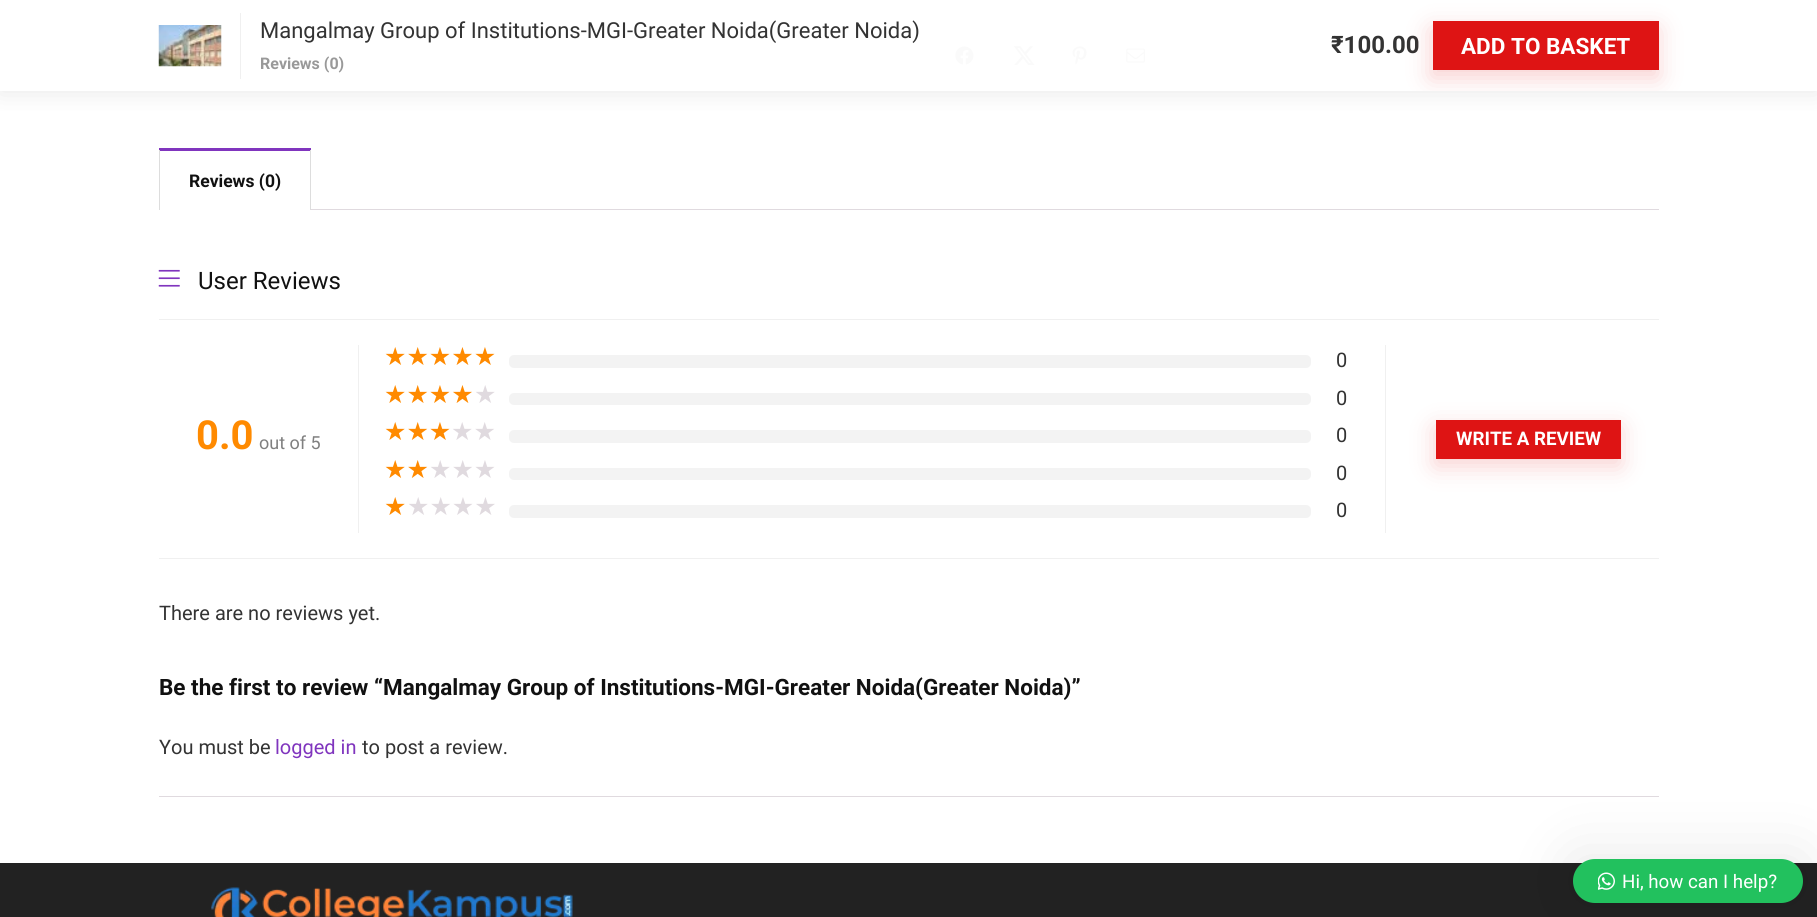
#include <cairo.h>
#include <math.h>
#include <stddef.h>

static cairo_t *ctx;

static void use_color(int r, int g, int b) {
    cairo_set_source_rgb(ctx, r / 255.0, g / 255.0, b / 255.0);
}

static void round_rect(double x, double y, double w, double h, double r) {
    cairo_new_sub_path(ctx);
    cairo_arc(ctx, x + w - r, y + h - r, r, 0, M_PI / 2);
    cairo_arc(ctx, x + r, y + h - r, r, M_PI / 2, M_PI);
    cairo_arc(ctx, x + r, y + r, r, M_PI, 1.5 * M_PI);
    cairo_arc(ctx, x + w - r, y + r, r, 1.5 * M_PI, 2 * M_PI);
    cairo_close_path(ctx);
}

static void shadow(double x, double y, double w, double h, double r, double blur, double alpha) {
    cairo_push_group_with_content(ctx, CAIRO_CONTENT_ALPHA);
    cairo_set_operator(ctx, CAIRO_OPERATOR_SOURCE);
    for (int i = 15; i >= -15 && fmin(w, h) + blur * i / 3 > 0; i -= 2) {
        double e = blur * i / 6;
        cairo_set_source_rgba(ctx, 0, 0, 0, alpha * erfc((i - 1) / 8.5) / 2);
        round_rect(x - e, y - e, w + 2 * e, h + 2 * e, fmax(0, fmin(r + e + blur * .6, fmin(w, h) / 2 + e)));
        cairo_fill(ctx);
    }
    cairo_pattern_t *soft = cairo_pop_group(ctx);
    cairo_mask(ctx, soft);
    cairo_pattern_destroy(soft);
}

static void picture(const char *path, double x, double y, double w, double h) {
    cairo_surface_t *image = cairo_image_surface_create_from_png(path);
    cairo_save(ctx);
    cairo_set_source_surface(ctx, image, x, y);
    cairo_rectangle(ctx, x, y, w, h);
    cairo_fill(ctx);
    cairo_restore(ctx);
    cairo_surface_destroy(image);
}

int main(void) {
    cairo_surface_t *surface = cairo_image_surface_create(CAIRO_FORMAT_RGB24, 1817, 917);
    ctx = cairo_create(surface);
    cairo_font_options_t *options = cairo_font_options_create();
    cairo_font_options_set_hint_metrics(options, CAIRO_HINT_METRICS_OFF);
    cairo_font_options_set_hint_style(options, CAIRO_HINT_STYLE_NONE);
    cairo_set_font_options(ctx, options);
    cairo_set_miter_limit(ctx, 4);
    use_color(255, 255, 255);
    cairo_paint(ctx);
    picture("img2.png", 955, 46, 19, 19);
    picture("img3.png", 1013, 46, 22, 19);
    picture("img4.png", 1072, 46, 15, 19);
    picture("img5.png", 1126, 48, 19, 15);
    cairo_save(ctx);
    cairo_rectangle(ctx, 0, 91, 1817, 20);
    cairo_clip(ctx);
    use_color(187, 187, 187);
    shadow(0, 0, 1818, 91, 0, 12.5, 0.36);
    cairo_restore(ctx);
    picture("img1.png", 158, 25, 64, 42);
    use_color(240, 240, 240);
    cairo_rectangle(ctx, 240, 13, 1, 66);
    cairo_fill(ctx);
    cairo_select_font_face(ctx, "Roboto", CAIRO_FONT_SLANT_NORMAL, CAIRO_FONT_WEIGHT_NORMAL);
    cairo_set_font_size(ctx, 22);
    use_color(51, 51, 51);
    cairo_move_to(ctx, 260, 38);
    cairo_show_text(ctx, "Mangalmay Group of Institutions-MGI-Greater Noida(Greater Noida)");
    cairo_select_font_face(ctx, "Roboto", CAIRO_FONT_SLANT_NORMAL, CAIRO_FONT_WEIGHT_BOLD);
    cairo_set_font_size(ctx, 16);
    use_color(153, 153, 153);
    cairo_move_to(ctx, 260, 69);
    cairo_show_text(ctx, "Reviews (0)");
    cairo_set_font_size(ctx, 24);
    use_color(51, 51, 51);
    cairo_move_to(ctx, 1331, 53);
    cairo_show_text(ctx, "₹100.00");
    cairo_save(ctx);
    cairo_rectangle(ctx, 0, 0, 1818, 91);
    cairo_clip(ctx);
    use_color(222, 20, 20);
    shadow(1431, 29, 227, 49, 0, 12, 0.2);
    cairo_restore(ctx);
    use_color(222, 20, 20);
    cairo_rectangle(ctx, 1433, 21, 226, 49);
    cairo_fill(ctx);
    cairo_set_font_size(ctx, 22.5);
    use_color(255, 255, 255);
    cairo_move_to(ctx, 1461, 54);
    cairo_show_text(ctx, "ADD TO BASKET");
    use_color(128, 53, 190);
    cairo_rectangle(ctx, 159, 148, 152, 3);
    cairo_fill(ctx);
    use_color(221, 221, 221);
    cairo_rectangle(ctx, 310, 150, 1, 60);
    cairo_fill(ctx);
    cairo_rectangle(ctx, 159, 150, 1, 60);
    cairo_fill(ctx);
    cairo_set_font_size(ctx, 17.5);
    use_color(17, 17, 17);
    cairo_move_to(ctx, 189, 187);
    cairo_show_text(ctx, "Reviews (0)");
    use_color(224, 218, 223);
    cairo_rectangle(ctx, 311, 209, 1348, 1);
    cairo_fill(ctx);
    cairo_rectangle(ctx, 159, 796, 1500, 1);
    cairo_fill(ctx);
    picture("img6.png", 158, 269, 22, 18);
    cairo_select_font_face(ctx, "Roboto", CAIRO_FONT_SLANT_NORMAL, CAIRO_FONT_WEIGHT_NORMAL);
    cairo_set_font_size(ctx, 24);
    use_color(17, 17, 17);
    cairo_move_to(ctx, 198, 289);
    cairo_show_text(ctx, "User Reviews");
    use_color(240, 240, 240);
    cairo_rectangle(ctx, 159, 319, 1500, 1);
    cairo_fill(ctx);
    cairo_select_font_face(ctx, "Roboto", CAIRO_FONT_SLANT_NORMAL, CAIRO_FONT_WEIGHT_BOLD);
    cairo_set_font_size(ctx, 40);
    use_color(255, 138, 0);
    cairo_move_to(ctx, 196, 449);
    cairo_show_text(ctx, "0.0");
    cairo_select_font_face(ctx, "Roboto", CAIRO_FONT_SLANT_NORMAL, CAIRO_FONT_WEIGHT_NORMAL);
    cairo_set_font_size(ctx, 18);
    use_color(128, 128, 128);
    cairo_move_to(ctx, 259, 449);
    cairo_show_text(ctx, "out of 5");
    use_color(240, 240, 240);
    cairo_rectangle(ctx, 1385, 345, 1, 188);
    cairo_fill(ctx);
    cairo_rectangle(ctx, 358, 345, 1, 188);
    cairo_fill(ctx);
    cairo_select_font_face(ctx, "DejaVu Sans", CAIRO_FONT_SLANT_NORMAL, CAIRO_FONT_WEIGHT_NORMAL);
    cairo_set_font_size(ctx, 25);
    use_color(255, 138, 0);
    cairo_move_to(ctx, 384, 365);
    cairo_show_text(ctx, "★★★★★");
    use_color(243, 243, 243);
    round_rect(509, 355, 802, 13, 5);
    cairo_fill(ctx);
    cairo_select_font_face(ctx, "Roboto", CAIRO_FONT_SLANT_NORMAL, CAIRO_FONT_WEIGHT_NORMAL);
    cairo_set_font_size(ctx, 20);
    use_color(51, 51, 51);
    cairo_move_to(ctx, 1336, 367);
    cairo_show_text(ctx, "0");
    cairo_select_font_face(ctx, "DejaVu Sans", CAIRO_FONT_SLANT_NORMAL, CAIRO_FONT_WEIGHT_NORMAL);
    cairo_set_font_size(ctx, 25);
    use_color(255, 138, 0);
    cairo_move_to(ctx, 384, 403);
    cairo_show_text(ctx, "★★★★");
    use_color(224, 218, 223);
    cairo_move_to(ctx, 474, 403);
    cairo_show_text(ctx, "★");
    use_color(243, 243, 243);
    round_rect(509, 393, 802, 12, 5);
    cairo_fill(ctx);
    cairo_select_font_face(ctx, "Roboto", CAIRO_FONT_SLANT_NORMAL, CAIRO_FONT_WEIGHT_NORMAL);
    cairo_set_font_size(ctx, 20);
    use_color(51, 51, 51);
    cairo_move_to(ctx, 1336, 405);
    cairo_show_text(ctx, "0");
    cairo_select_font_face(ctx, "DejaVu Sans", CAIRO_FONT_SLANT_NORMAL, CAIRO_FONT_WEIGHT_NORMAL);
    cairo_set_font_size(ctx, 25);
    use_color(255, 138, 0);
    cairo_move_to(ctx, 384, 440);
    cairo_show_text(ctx, "★★★");
    use_color(224, 218, 223);
    cairo_move_to(ctx, 451, 440);
    cairo_show_text(ctx, "★★");
    use_color(243, 243, 243);
    round_rect(509, 430, 802, 13, 5);
    cairo_fill(ctx);
    cairo_select_font_face(ctx, "Roboto", CAIRO_FONT_SLANT_NORMAL, CAIRO_FONT_WEIGHT_NORMAL);
    cairo_set_font_size(ctx, 20);
    use_color(51, 51, 51);
    cairo_move_to(ctx, 1336, 442);
    cairo_show_text(ctx, "0");
    cairo_select_font_face(ctx, "DejaVu Sans", CAIRO_FONT_SLANT_NORMAL, CAIRO_FONT_WEIGHT_NORMAL);
    cairo_set_font_size(ctx, 25);
    use_color(255, 138, 0);
    cairo_move_to(ctx, 384, 478);
    cairo_show_text(ctx, "★★");
    use_color(224, 218, 223);
    cairo_move_to(ctx, 429, 478);
    cairo_show_text(ctx, "★★★");
    use_color(243, 243, 243);
    round_rect(509, 468, 802, 12, 5);
    cairo_fill(ctx);
    cairo_select_font_face(ctx, "Roboto", CAIRO_FONT_SLANT_NORMAL, CAIRO_FONT_WEIGHT_NORMAL);
    cairo_set_font_size(ctx, 20);
    use_color(51, 51, 51);
    cairo_move_to(ctx, 1336, 480);
    cairo_show_text(ctx, "0");
    cairo_select_font_face(ctx, "DejaVu Sans", CAIRO_FONT_SLANT_NORMAL, CAIRO_FONT_WEIGHT_NORMAL);
    cairo_set_font_size(ctx, 25);
    use_color(255, 138, 0);
    cairo_move_to(ctx, 384, 515);
    cairo_show_text(ctx, "★");
    use_color(224, 218, 223);
    cairo_move_to(ctx, 407, 515);
    cairo_show_text(ctx, "★★★★");
    use_color(243, 243, 243);
    round_rect(509, 505, 802, 13, 5);
    cairo_fill(ctx);
    cairo_select_font_face(ctx, "Roboto", CAIRO_FONT_SLANT_NORMAL, CAIRO_FONT_WEIGHT_NORMAL);
    cairo_set_font_size(ctx, 20);
    use_color(51, 51, 51);
    cairo_move_to(ctx, 1336, 517);
    cairo_show_text(ctx, "0");
    use_color(222, 20, 20);
    shadow(1435, 428, 185, 38, 0, 12, 0.2);
    use_color(222, 20, 20);
    cairo_rectangle(ctx, 1436, 420, 185, 39);
    cairo_fill(ctx);
    cairo_select_font_face(ctx, "Roboto", CAIRO_FONT_SLANT_NORMAL, CAIRO_FONT_WEIGHT_BOLD);
    cairo_set_font_size(ctx, 18.75);
    use_color(255, 255, 255);
    cairo_move_to(ctx, 1456, 445);
    cairo_show_text(ctx, "WRITE A REVIEW");
    use_color(240, 240, 240);
    cairo_rectangle(ctx, 159, 558, 1500, 1);
    cairo_fill(ctx);
    cairo_select_font_face(ctx, "Roboto", CAIRO_FONT_SLANT_NORMAL, CAIRO_FONT_WEIGHT_NORMAL);
    cairo_set_font_size(ctx, 20);
    use_color(51, 51, 51);
    cairo_move_to(ctx, 159, 620);
    cairo_show_text(ctx, "There are no reviews yet.");
    cairo_select_font_face(ctx, "Roboto", CAIRO_FONT_SLANT_NORMAL, CAIRO_FONT_WEIGHT_BOLD);
    cairo_set_font_size(ctx, 22.5);
    use_color(17, 17, 17);
    cairo_move_to(ctx, 159, 695);
    cairo_show_text(ctx, "Be the first to review “Mangalmay Group of Institutions-MGI-Greater Noida(Greater Noida)”");
    cairo_select_font_face(ctx, "Roboto", CAIRO_FONT_SLANT_NORMAL, CAIRO_FONT_WEIGHT_NORMAL);
    cairo_set_font_size(ctx, 20);
    use_color(51, 51, 51);
    cairo_move_to(ctx, 159, 754);
    cairo_show_text(ctx, "You must be");
    use_color(128, 53, 190);
    cairo_move_to(ctx, 275, 754);
    cairo_show_text(ctx, "logged in");
    use_color(51, 51, 51);
    cairo_move_to(ctx, 362, 754);
    cairo_show_text(ctx, "to post a review.");
    use_color(34, 34, 34);
    cairo_rectangle(ctx, 0, 863, 1817, 54);
    cairo_fill(ctx);
    picture("img7.png", 211, 887, 362, 30);
    use_color(0, 0, 0);
    shadow(1573, 859, 230, 44, 22, 31, 0.1);
    use_color(34, 193, 94);
    round_rect(1573, 859, 230, 44, 22);
    cairo_fill(ctx);
    picture("img8.png", 1598, 872, 17, 18);
    cairo_set_font_size(ctx, 18.75);
    use_color(255, 255, 255);
    cairo_move_to(ctx, 1622, 888);
    cairo_show_text(ctx, "Hi, how can I help?");
    cairo_surface_write_to_png(surface, "result.png");
    cairo_font_options_destroy(options);
    cairo_destroy(ctx);
    cairo_surface_destroy(surface);
    return 0;
}
